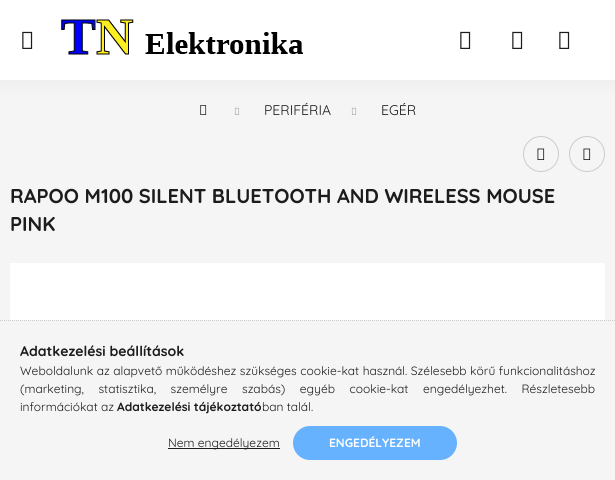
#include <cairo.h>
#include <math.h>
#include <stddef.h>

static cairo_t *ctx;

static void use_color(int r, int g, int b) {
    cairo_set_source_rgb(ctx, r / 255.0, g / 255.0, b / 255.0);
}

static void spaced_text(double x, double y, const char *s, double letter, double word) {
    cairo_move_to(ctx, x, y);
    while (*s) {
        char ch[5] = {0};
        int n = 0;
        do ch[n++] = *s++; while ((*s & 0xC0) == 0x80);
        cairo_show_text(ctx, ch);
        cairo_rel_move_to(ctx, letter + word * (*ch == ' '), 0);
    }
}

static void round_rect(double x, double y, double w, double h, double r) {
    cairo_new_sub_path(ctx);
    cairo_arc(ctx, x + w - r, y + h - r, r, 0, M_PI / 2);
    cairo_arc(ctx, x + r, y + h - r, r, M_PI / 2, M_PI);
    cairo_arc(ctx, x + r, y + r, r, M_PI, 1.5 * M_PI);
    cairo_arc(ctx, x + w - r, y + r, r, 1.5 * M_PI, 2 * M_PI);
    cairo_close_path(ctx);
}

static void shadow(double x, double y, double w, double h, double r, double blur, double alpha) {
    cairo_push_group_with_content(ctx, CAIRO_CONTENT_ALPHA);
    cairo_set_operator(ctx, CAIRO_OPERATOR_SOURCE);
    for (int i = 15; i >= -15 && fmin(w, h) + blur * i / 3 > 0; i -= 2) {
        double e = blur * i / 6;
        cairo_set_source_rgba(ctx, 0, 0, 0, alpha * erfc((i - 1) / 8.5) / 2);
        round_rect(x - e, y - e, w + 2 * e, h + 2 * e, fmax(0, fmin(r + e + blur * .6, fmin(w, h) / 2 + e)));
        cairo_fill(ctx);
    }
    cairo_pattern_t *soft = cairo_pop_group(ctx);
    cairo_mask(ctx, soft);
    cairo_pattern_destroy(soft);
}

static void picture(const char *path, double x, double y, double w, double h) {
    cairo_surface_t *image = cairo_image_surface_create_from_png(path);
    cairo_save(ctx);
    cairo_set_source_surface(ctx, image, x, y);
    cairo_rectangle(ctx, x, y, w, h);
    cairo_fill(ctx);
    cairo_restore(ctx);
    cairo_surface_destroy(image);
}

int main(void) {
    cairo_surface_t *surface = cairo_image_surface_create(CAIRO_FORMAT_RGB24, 615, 480);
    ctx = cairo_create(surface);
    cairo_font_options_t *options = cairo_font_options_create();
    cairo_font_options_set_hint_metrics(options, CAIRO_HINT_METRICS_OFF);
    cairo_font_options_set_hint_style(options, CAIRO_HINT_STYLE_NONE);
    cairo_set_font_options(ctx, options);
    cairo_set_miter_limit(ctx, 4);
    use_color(245, 245, 245);
    cairo_paint(ctx);
    picture("img3.png", 200, 105, 7, 10);
    picture("img4.png", 234, 107, 6, 8);
    picture("img4.png", 351, 107, 6, 8);
    use_color(0, 0, 0);
    shadow(0, 0, 615, 80, 0, 10, 0.05);
    use_color(255, 255, 255);
    cairo_rectangle(ctx, 0, 0, 615, 80);
    cairo_fill(ctx);
    picture("img1.png", 22, 31, 11, 18);
    picture("img2.png", 61, 19, 242, 36);
    picture("img1.png", 460, 31, 11, 18);
    picture("img1.png", 512, 31, 11, 18);
    picture("img1.png", 559, 31, 11, 18);
    cairo_select_font_face(ctx, "Quicksand", CAIRO_FONT_SLANT_NORMAL, CAIRO_FONT_WEIGHT_NORMAL);
    cairo_set_font_size(ctx, 14);
    use_color(28, 28, 28);
    cairo_move_to(ctx, 264, 115);
    cairo_show_text(ctx, "PERIFÉRIA");
    cairo_move_to(ctx, 381, 115);
    cairo_show_text(ctx, "EGÉR");
    cairo_new_path(ctx);
    cairo_arc(ctx, 541, 154, 17.5, 0, 2 * M_PI);
    use_color(204, 204, 204);
    cairo_set_line_width(ctx, 1);
    cairo_stroke(ctx);
    picture("img5.png", 537, 148, 8, 12);
    cairo_arc(ctx, 587, 154, 17.5, 0, 2 * M_PI);
    cairo_stroke(ctx);
    picture("img5.png", 583, 148, 8, 12);
    cairo_select_font_face(ctx, "Quicksand", CAIRO_FONT_SLANT_NORMAL, CAIRO_FONT_WEIGHT_BOLD);
    cairo_set_font_size(ctx, 20);
    use_color(28, 28, 28);
    cairo_move_to(ctx, 10, 203);
    cairo_show_text(ctx, "RAPOO M100 SILENT BLUETOOTH AND WIRELESS MOUSE");
    cairo_move_to(ctx, 10, 231);
    cairo_show_text(ctx, "PINK");
    use_color(255, 255, 255);
    cairo_rectangle(ctx, 10, 263, 595, 57);
    cairo_fill(ctx);
    cairo_new_path(ctx);
    cairo_move_to(ctx, 0, 320.5);
    cairo_line_to(ctx, 615, 320.5);
    use_color(204, 204, 204);
    cairo_set_dash(ctx, (double[]){1, 1}, 2, 0);
    cairo_stroke(ctx);
    cairo_set_font_size(ctx, 14);
    use_color(28, 28, 28);
    cairo_move_to(ctx, 20, 356);
    cairo_show_text(ctx, "Adatkezelési beállítások");
    cairo_select_font_face(ctx, "Quicksand", CAIRO_FONT_SLANT_NORMAL, CAIRO_FONT_WEIGHT_NORMAL);
    cairo_set_font_size(ctx, 12);
    spaced_text(20, 375, "Weboldalunk az alapvető működéshez szükséges cookie-kat használ. Szélesebb körű funkcionalitáshoz", 0, 0.25);
    spaced_text(20, 393, "(marketing, statisztika, személyre szabás) egyéb cookie-kat engedélyezhet. Részletesebb", 0, 11.25);
    cairo_move_to(ctx, 20, 411);
    cairo_show_text(ctx, "információkat az");
    cairo_select_font_face(ctx, "Quicksand", CAIRO_FONT_SLANT_NORMAL, CAIRO_FONT_WEIGHT_BOLD);
    cairo_move_to(ctx, 117, 411);
    cairo_show_text(ctx, "Adatkezelési tájékoztató");
    cairo_select_font_face(ctx, "Quicksand", CAIRO_FONT_SLANT_NORMAL, CAIRO_FONT_WEIGHT_NORMAL);
    cairo_move_to(ctx, 262, 411);
    cairo_show_text(ctx, "ban talál.");
    cairo_rectangle(ctx, 168, 448, 112, 1);
    cairo_fill(ctx);
    cairo_move_to(ctx, 168, 447);
    cairo_show_text(ctx, "Nem engedélyezem");
    use_color(102, 178, 255);
    round_rect(293, 426, 164, 34, 17);
    cairo_fill(ctx);
    cairo_select_font_face(ctx, "Quicksand", CAIRO_FONT_SLANT_NORMAL, CAIRO_FONT_WEIGHT_BOLD);
    use_color(255, 255, 255);
    cairo_move_to(ctx, 329, 447);
    cairo_show_text(ctx, "ENGEDÉLYEZEM");
    cairo_surface_write_to_png(surface, "result.png");
    cairo_font_options_destroy(options);
    cairo_destroy(ctx);
    cairo_surface_destroy(surface);
    return 0;
}
